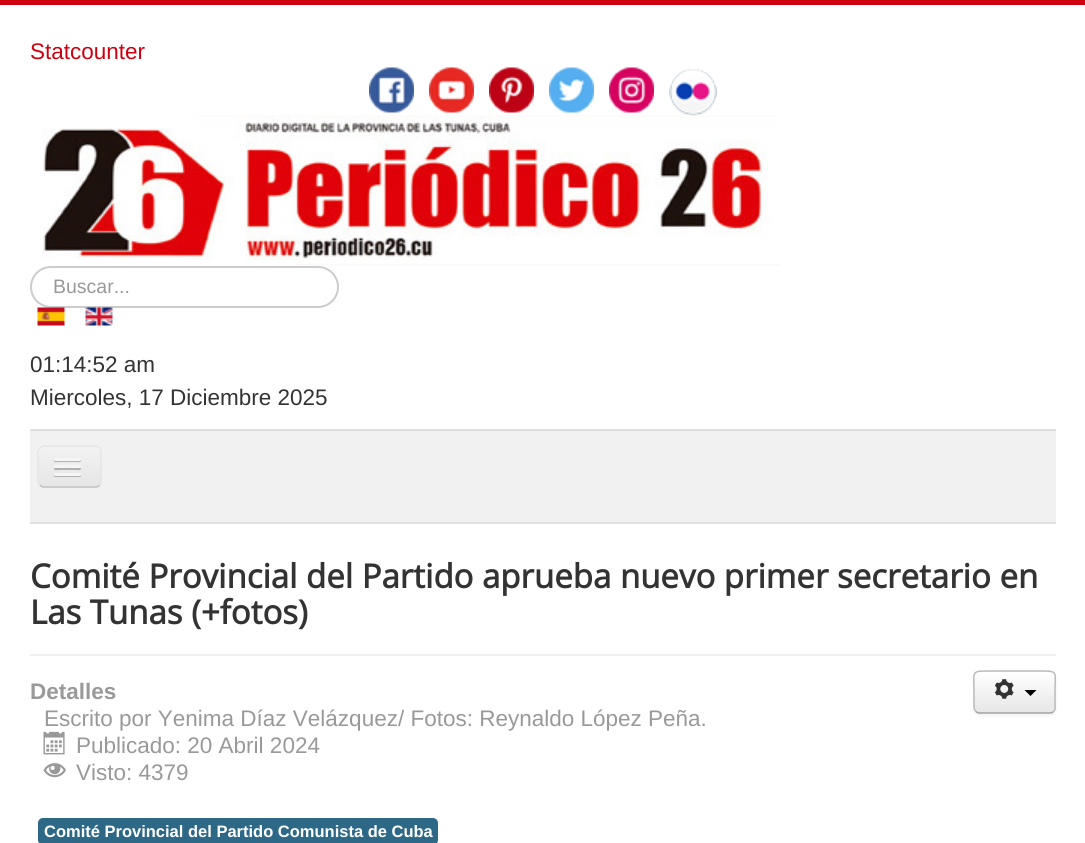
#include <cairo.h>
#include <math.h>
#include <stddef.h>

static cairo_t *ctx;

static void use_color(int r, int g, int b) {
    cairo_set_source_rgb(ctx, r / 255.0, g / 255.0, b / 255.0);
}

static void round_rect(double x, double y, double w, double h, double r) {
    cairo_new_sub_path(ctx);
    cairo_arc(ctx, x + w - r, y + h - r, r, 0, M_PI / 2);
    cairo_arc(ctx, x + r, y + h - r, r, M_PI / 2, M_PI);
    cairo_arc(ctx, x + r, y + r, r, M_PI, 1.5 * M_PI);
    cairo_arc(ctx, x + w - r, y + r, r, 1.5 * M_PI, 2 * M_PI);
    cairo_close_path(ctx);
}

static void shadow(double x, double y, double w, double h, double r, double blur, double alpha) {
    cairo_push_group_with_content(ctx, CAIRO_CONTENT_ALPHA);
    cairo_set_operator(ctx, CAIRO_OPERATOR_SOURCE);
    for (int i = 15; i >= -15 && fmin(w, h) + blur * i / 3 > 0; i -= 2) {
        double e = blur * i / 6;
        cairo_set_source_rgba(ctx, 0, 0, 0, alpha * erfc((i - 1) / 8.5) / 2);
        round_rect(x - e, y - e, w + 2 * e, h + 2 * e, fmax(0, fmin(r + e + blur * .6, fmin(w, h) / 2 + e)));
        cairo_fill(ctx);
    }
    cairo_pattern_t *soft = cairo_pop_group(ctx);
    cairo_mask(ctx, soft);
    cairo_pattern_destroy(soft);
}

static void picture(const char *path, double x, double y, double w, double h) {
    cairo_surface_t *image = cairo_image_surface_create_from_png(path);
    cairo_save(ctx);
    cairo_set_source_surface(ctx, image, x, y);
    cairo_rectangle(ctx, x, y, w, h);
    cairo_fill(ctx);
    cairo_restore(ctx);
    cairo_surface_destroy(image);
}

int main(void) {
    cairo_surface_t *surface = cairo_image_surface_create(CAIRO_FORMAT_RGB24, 1085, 843);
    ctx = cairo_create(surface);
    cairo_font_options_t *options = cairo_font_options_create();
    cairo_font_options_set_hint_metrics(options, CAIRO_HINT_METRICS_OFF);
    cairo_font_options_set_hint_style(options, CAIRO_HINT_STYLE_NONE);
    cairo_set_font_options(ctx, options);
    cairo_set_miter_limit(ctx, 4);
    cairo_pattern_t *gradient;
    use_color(255, 255, 255);
    cairo_paint(ctx);
    use_color(204, 0, 14);
    cairo_rectangle(ctx, 0, 0, 1085, 5);
    cairo_fill(ctx);
    cairo_select_font_face(ctx, "Liberation Sans", CAIRO_FONT_SLANT_NORMAL, CAIRO_FONT_WEIGHT_NORMAL);
    cairo_set_font_size(ctx, 22.5);
    cairo_move_to(ctx, 30, 59);
    cairo_show_text(ctx, "Statcounter");
    picture("img1.png", 369, 67, 45, 46);
    picture("img2.png", 429, 67, 45, 46);
    picture("img3.png", 489, 67, 45, 46);
    picture("img4.png", 549, 67, 45, 46);
    picture("img5.png", 609, 67, 45, 46);
    picture("img6.png", 669, 69, 48, 47);
    picture("img7.png", 42, 115, 738, 151);
    round_rect(31, 267, 307, 40, 20);
    use_color(204, 204, 204);
    cairo_stroke(ctx);
    cairo_set_font_size(ctx, 19.5);
    use_color(153, 153, 153);
    cairo_move_to(ctx, 53, 293);
    cairo_show_text(ctx, "Buscar...");
    picture("img8.png", 37, 307, 28, 19);
    picture("img9.png", 85, 307, 28, 19);
    cairo_set_font_size(ctx, 22.5);
    use_color(51, 51, 51);
    cairo_move_to(ctx, 30, 372);
    cairo_show_text(ctx, "01:14:52 am");
    cairo_move_to(ctx, 30, 405);
    cairo_show_text(ctx, "Miercoles, 17 Diciembre 2025");
    use_color(241, 241, 241);
    cairo_rectangle(ctx, 30, 431, 1026, 91);
    cairo_fill(ctx);
    use_color(223, 223, 223);
    cairo_rectangle(ctx, 30, 429, 1026, 2);
    cairo_fill(ctx);
    cairo_rectangle(ctx, 30, 522, 1026, 2);
    cairo_fill(ctx);
    use_color(237, 237, 237);
    round_rect(38, 446, 64, 42, 6);
    cairo_fill(ctx);
    cairo_save(ctx);
    round_rect(38, 446, 64, 42, 6);
    cairo_clip(ctx);
    gradient = cairo_pattern_create_linear(70, 447, 70, 486);
    cairo_pattern_add_color_stop_rgba(gradient, 0, 0.949, 0.949, 0.949, 1);
    cairo_pattern_add_color_stop_rgba(gradient, 1, 0.902, 0.902, 0.902, 1);
    cairo_set_source(ctx, gradient);
    cairo_pattern_destroy(gradient);
    cairo_rectangle(ctx, 38, 447, 64, 39);
    cairo_fill(ctx);
    cairo_restore(ctx);
    cairo_new_path(ctx);
    cairo_move_to(ctx, 99.5, 485);
    cairo_curve_to(ctx, 98.5, 486, 97.5, 487, 96, 487);
    cairo_line_to(ctx, 43.5, 487);
    cairo_curve_to(ctx, 42, 487, 41, 486, 40, 485);
    use_color(191, 191, 191);
    cairo_set_line_width(ctx, 1.5);
    cairo_stroke(ctx);
    cairo_new_path(ctx);
    cairo_move_to(ctx, 40, 485);
    cairo_curve_to(ctx, 39, 484, 38, 483, 38, 481.5);
    cairo_line_to(ctx, 38, 451.5);
    cairo_curve_to(ctx, 38, 450, 39, 449, 40, 448);
    cairo_curve_to(ctx, 41, 447, 42, 446, 43.5, 446);
    cairo_line_to(ctx, 96, 446);
    cairo_curve_to(ctx, 97.5, 446, 98.5, 447, 99.5, 448);
    cairo_curve_to(ctx, 100.5, 449, 101, 450, 101, 451.5);
    cairo_line_to(ctx, 101, 481.5);
    cairo_curve_to(ctx, 101, 483, 100.5, 484, 99.5, 485);
    use_color(230, 230, 230);
    cairo_stroke(ctx);
    use_color(179, 179, 179);
    cairo_new_path(ctx);
    cairo_move_to(ctx, 54, 460);
    cairo_curve_to(ctx, 52.5, 463, 59.5, 462, 59.5, 462);
    cairo_line_to(ctx, 75.5, 462);
    cairo_curve_to(ctx, 75.5, 462, 82.5, 463, 81, 460);
    cairo_curve_to(ctx, 80.5, 460, 80, 460.5, 79.5, 460.5);
    cairo_line_to(ctx, 55.5, 460.5);
    cairo_curve_to(ctx, 55, 460.5, 54.5, 460, 54, 460);
    cairo_close_path(ctx);
    cairo_fill(ctx);
    use_color(245, 245, 245);
    round_rect(54, 458, 27, 3, 1.5);
    cairo_fill(ctx);
    use_color(176, 176, 176);
    cairo_new_path(ctx);
    cairo_move_to(ctx, 54.5, 467.5);
    cairo_line_to(ctx, 54, 469);
    cairo_curve_to(ctx, 54.5, 471, 59, 470, 59.5, 470);
    cairo_line_to(ctx, 75.5, 470);
    cairo_curve_to(ctx, 76, 470, 80.5, 471, 81, 469);
    cairo_line_to(ctx, 80.5, 467.5);
    cairo_line_to(ctx, 79.5, 468);
    cairo_line_to(ctx, 55.5, 468);
    cairo_close_path(ctx);
    cairo_fill(ctx);
    use_color(245, 245, 245);
    round_rect(54, 465, 27, 3, 1.5);
    cairo_fill(ctx);
    use_color(175, 175, 175);
    cairo_new_path(ctx);
    cairo_move_to(ctx, 54, 475);
    cairo_curve_to(ctx, 52.5, 478, 59.5, 477, 59.5, 477);
    cairo_line_to(ctx, 75.5, 477);
    cairo_curve_to(ctx, 75.5, 477, 82.5, 478, 81, 475);
    cairo_curve_to(ctx, 80.5, 475, 80, 475.5, 79.5, 475.5);
    cairo_line_to(ctx, 55.5, 475.5);
    cairo_curve_to(ctx, 55, 475.5, 54.5, 475, 54, 475);
    cairo_close_path(ctx);
    cairo_fill(ctx);
    use_color(245, 245, 245);
    round_rect(54, 473, 27, 3, 1.5);
    cairo_fill(ctx);
    use_color(238, 238, 238);
    cairo_rectangle(ctx, 30, 654, 1026, 2);
    cairo_fill(ctx);
    cairo_select_font_face(ctx, "Open Sans", CAIRO_FONT_SLANT_NORMAL, CAIRO_FONT_WEIGHT_BOLD);
    cairo_set_font_size(ctx, 33);
    use_color(51, 51, 51);
    cairo_move_to(ctx, 30, 588);
    cairo_show_text(ctx, "Comité Provincial del Partido aprueba nuevo primer secretario en");
    cairo_move_to(ctx, 30, 624);
    cairo_show_text(ctx, "Las Tunas (+fotos)");
    cairo_select_font_face(ctx, "Liberation Sans", CAIRO_FONT_SLANT_NORMAL, CAIRO_FONT_WEIGHT_BOLD);
    cairo_set_font_size(ctx, 22.5);
    use_color(153, 153, 153);
    cairo_move_to(ctx, 30, 699);
    cairo_show_text(ctx, "Detalles");
    cairo_select_font_face(ctx, "Liberation Sans", CAIRO_FONT_SLANT_NORMAL, CAIRO_FONT_WEIGHT_NORMAL);
    cairo_move_to(ctx, 44, 726);
    cairo_show_text(ctx, "Escrito por Yenima Díaz Velázquez/ Fotos: Reynaldo López Peña.");
    picture("img10.png", 43, 731, 22, 24);
    cairo_move_to(ctx, 76, 753);
    cairo_show_text(ctx, "Publicado: 20 Abril 2024");
    picture("img11.png", 43, 763, 23, 15);
    cairo_move_to(ctx, 76, 780);
    cairo_show_text(ctx, "Visto: 4379");
    use_color(0, 0, 0);
    shadow(974, 672, 82, 44, 6, 1.5, 0.05);
    use_color(245, 245, 245);
    round_rect(974, 671, 82, 43, 6);
    cairo_fill(ctx);
    cairo_save(ctx);
    round_rect(974, 671, 82, 43, 6);
    cairo_clip(ctx);
    gradient = cairo_pattern_create_linear(1015, 672, 1015, 713);
    cairo_pattern_add_color_stop_rgba(gradient, 0, 1, 1, 1, 1);
    cairo_pattern_add_color_stop_rgba(gradient, 1, 0.902, 0.902, 0.902, 1);
    cairo_set_source(ctx, gradient);
    cairo_pattern_destroy(gradient);
    cairo_rectangle(ctx, 974, 672, 82, 41);
    cairo_fill(ctx);
    cairo_restore(ctx);
    cairo_set_source_rgba(ctx, 1, 1, 1, 0.2);
    cairo_new_path(ctx);
    cairo_move_to(ctx, 980, 674);
    cairo_line_to(ctx, 1050, 674);
    cairo_curve_to(ctx, 1056, 674, 1054, 686, 1054, 689);
    cairo_line_to(ctx, 1054, 711);
    cairo_curve_to(ctx, 1055, 710, 1055, 709, 1055, 708);
    cairo_line_to(ctx, 1055, 677);
    cairo_curve_to(ctx, 1055, 674, 1053, 672, 1050, 672);
    cairo_line_to(ctx, 980, 672);
    cairo_curve_to(ctx, 977, 672, 975, 674, 975, 677);
    cairo_line_to(ctx, 975, 678);
    cairo_curve_to(ctx, 975, 676, 977, 674, 980, 674);
    cairo_close_path(ctx);
    cairo_fill(ctx);
    cairo_new_path(ctx);
    cairo_move_to(ctx, 1053.5, 711.5);
    cairo_curve_to(ctx, 1052.5, 712.5, 1051.5, 713, 1050, 713);
    cairo_line_to(ctx, 979.5, 713);
    cairo_curve_to(ctx, 978, 713, 977, 712.5, 976, 711.5);
    use_color(162, 162, 162);
    cairo_stroke(ctx);
    cairo_new_path(ctx);
    cairo_move_to(ctx, 976, 711.5);
    cairo_curve_to(ctx, 973.5, 709.5, 974, 705.5, 974, 703);
    cairo_line_to(ctx, 974, 692);
    cairo_curve_to(ctx, 974, 670.5, 970.5, 671, 991, 671);
    cairo_line_to(ctx, 1038, 671);
    cairo_curve_to(ctx, 1059, 671, 1055, 670.5, 1055, 692);
    cairo_line_to(ctx, 1055, 703);
    cairo_curve_to(ctx, 1055, 705.5, 1056, 709.5, 1053.5, 711.5);
    use_color(187, 187, 187);
    cairo_stroke(ctx);
    picture("img12.png", 994, 679, 20, 20);
    use_color(0, 0, 0);
    cairo_new_path(ctx);
    cairo_move_to(ctx, 1024.5, 690);
    cairo_line_to(ctx, 1036.5, 690);
    cairo_line_to(ctx, 1030.5, 696);
    cairo_close_path(ctx);
    cairo_fill(ctx);
    use_color(45, 105, 135);
    round_rect(38, 818, 400, 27, 5);
    cairo_fill(ctx);
    cairo_select_font_face(ctx, "Liberation Sans", CAIRO_FONT_SLANT_NORMAL, CAIRO_FONT_WEIGHT_BOLD);
    cairo_set_font_size(ctx, 16.5);
    use_color(255, 255, 255);
    cairo_move_to(ctx, 44, 837);
    cairo_show_text(ctx, "Comité Provincial del Partido Comunista de Cuba");
    cairo_surface_write_to_png(surface, "result.png");
    cairo_font_options_destroy(options);
    cairo_destroy(ctx);
    cairo_surface_destroy(surface);
    return 0;
}
